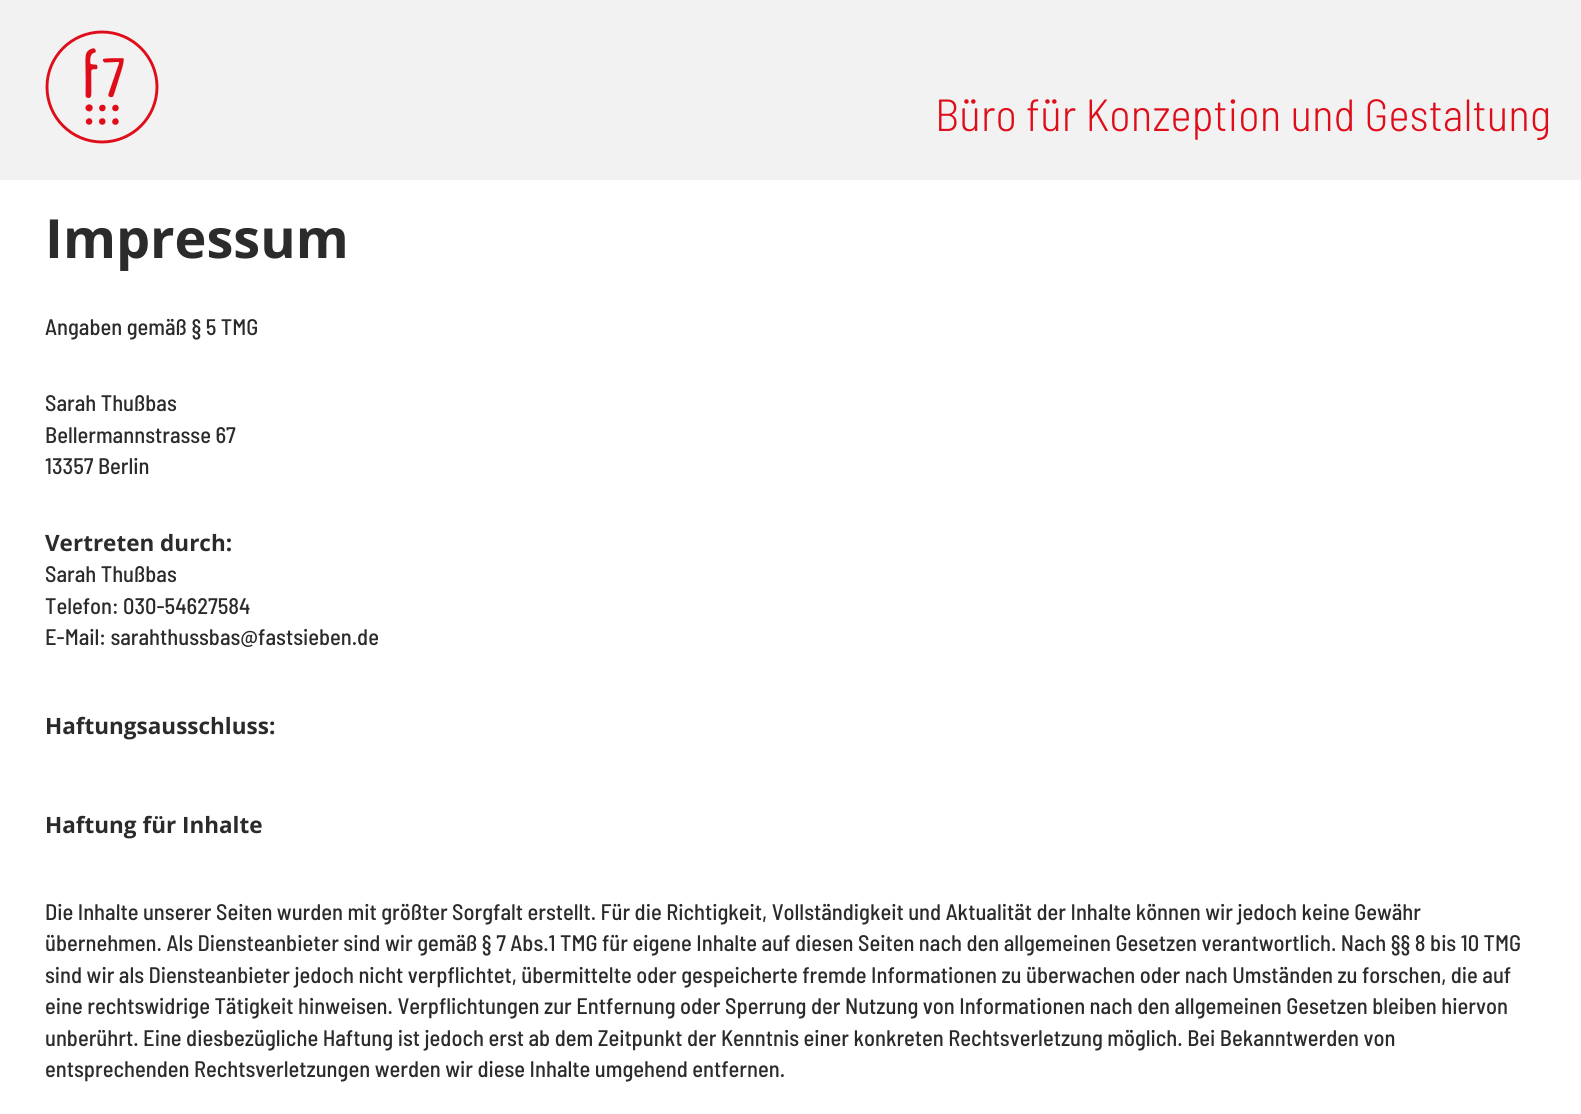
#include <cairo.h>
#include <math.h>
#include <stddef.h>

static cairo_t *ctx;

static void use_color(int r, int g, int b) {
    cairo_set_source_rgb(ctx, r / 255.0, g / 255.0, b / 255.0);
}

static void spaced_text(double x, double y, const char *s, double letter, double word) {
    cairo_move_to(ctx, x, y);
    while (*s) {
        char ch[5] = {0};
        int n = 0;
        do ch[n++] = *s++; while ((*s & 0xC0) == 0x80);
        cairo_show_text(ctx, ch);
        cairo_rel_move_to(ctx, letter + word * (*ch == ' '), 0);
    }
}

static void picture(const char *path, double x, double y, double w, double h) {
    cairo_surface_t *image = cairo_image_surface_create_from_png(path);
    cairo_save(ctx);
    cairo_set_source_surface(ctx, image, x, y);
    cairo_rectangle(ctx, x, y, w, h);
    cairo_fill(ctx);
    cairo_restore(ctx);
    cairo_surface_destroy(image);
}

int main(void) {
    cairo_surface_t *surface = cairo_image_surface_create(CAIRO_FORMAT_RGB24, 1581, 1114);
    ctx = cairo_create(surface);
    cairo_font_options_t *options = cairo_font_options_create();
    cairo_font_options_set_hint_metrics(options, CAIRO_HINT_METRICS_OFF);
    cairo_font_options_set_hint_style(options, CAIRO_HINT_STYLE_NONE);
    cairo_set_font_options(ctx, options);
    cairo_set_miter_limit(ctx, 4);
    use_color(255, 255, 255);
    cairo_paint(ctx);
    use_color(242, 242, 242);
    cairo_rectangle(ctx, 0, 0, 1581, 180);
    cairo_fill(ctx);
    picture("img1.png", 45, 30, 114, 114);
    cairo_select_font_face(ctx, "Barlow Semi Condensed Light", CAIRO_FONT_SLANT_NORMAL, CAIRO_FONT_WEIGHT_NORMAL);
    cairo_set_font_size(ctx, 45);
    use_color(222, 13, 25);
    spaced_text(935, 131, "Büro für Konzeption und Gestaltung", 0.15, 0);
    cairo_select_font_face(ctx, "Open Sans", CAIRO_FONT_SLANT_NORMAL, CAIRO_FONT_WEIGHT_BOLD);
    cairo_set_font_size(ctx, 54);
    use_color(43, 43, 43);
    cairo_move_to(ctx, 45, 258);
    cairo_show_text(ctx, "Impressum");
    cairo_select_font_face(ctx, "Barlow Semi Condensed Medium", CAIRO_FONT_SLANT_NORMAL, CAIRO_FONT_WEIGHT_NORMAL);
    cairo_set_font_size(ctx, 22.5);
    cairo_move_to(ctx, 45, 335);
    cairo_show_text(ctx, "Angaben gemäß § 5 TMG");
    cairo_move_to(ctx, 45, 411);
    cairo_show_text(ctx, "Sarah Thußbas");
    cairo_move_to(ctx, 45, 443);
    cairo_show_text(ctx, "Bellermannstrasse 67");
    cairo_move_to(ctx, 45, 474);
    cairo_show_text(ctx, "13357 Berlin");
    cairo_select_font_face(ctx, "Open Sans", CAIRO_FONT_SLANT_NORMAL, CAIRO_FONT_WEIGHT_BOLD);
    cairo_move_to(ctx, 45, 551);
    cairo_show_text(ctx, "Vertreten durch:");
    cairo_select_font_face(ctx, "Barlow Semi Condensed Medium", CAIRO_FONT_SLANT_NORMAL, CAIRO_FONT_WEIGHT_NORMAL);
    cairo_move_to(ctx, 45, 582);
    cairo_show_text(ctx, "Sarah Thußbas");
    cairo_move_to(ctx, 45, 614);
    cairo_show_text(ctx, "Telefon: 030-54627584");
    cairo_move_to(ctx, 45, 645);
    cairo_show_text(ctx, "E-Mail: sarahthussbas@fastsieben.de");
    cairo_select_font_face(ctx, "Open Sans", CAIRO_FONT_SLANT_NORMAL, CAIRO_FONT_WEIGHT_BOLD);
    cairo_move_to(ctx, 45, 734);
    cairo_show_text(ctx, "Haftungsausschluss:");
    cairo_move_to(ctx, 45, 833);
    cairo_show_text(ctx, "Haftung für Inhalte");
    cairo_select_font_face(ctx, "Barlow Semi Condensed Medium", CAIRO_FONT_SLANT_NORMAL, CAIRO_FONT_WEIGHT_NORMAL);
    cairo_move_to(ctx, 45, 920);
    cairo_show_text(ctx, "Die Inhalte unserer Seiten wurden mit größter Sorgfalt erstellt. Für die Richtigkeit, Vollständigkeit und Aktualität der Inhalte können wir jedoch keine Gewähr");
    cairo_move_to(ctx, 45, 951);
    cairo_show_text(ctx, "übernehmen. Als Diensteanbieter sind wir gemäß § 7 Abs.1 TMG für eigene Inhalte auf diesen Seiten nach den allgemeinen Gesetzen verantwortlich. Nach §§ 8 bis 10 TMG");
    cairo_move_to(ctx, 45, 983);
    cairo_show_text(ctx, "sind wir als Diensteanbieter jedoch nicht verpflichtet, übermittelte oder gespeicherte fremde Informationen zu überwachen oder nach Umständen zu forschen, die auf");
    cairo_move_to(ctx, 45, 1014);
    cairo_show_text(ctx, "eine rechtswidrige Tätigkeit hinweisen. Verpflichtungen zur Entfernung oder Sperrung der Nutzung von Informationen nach den allgemeinen Gesetzen bleiben hiervon");
    cairo_move_to(ctx, 45, 1046);
    cairo_show_text(ctx, "unberührt. Eine diesbezügliche Haftung ist jedoch erst ab dem Zeitpunkt der Kenntnis einer konkreten Rechtsverletzung möglich. Bei Bekanntwerden von");
    cairo_move_to(ctx, 45, 1077);
    cairo_show_text(ctx, "entsprechenden Rechtsverletzungen werden wir diese Inhalte umgehend entfernen.");
    cairo_surface_write_to_png(surface, "result.png");
    cairo_font_options_destroy(options);
    cairo_destroy(ctx);
    cairo_surface_destroy(surface);
    return 0;
}
